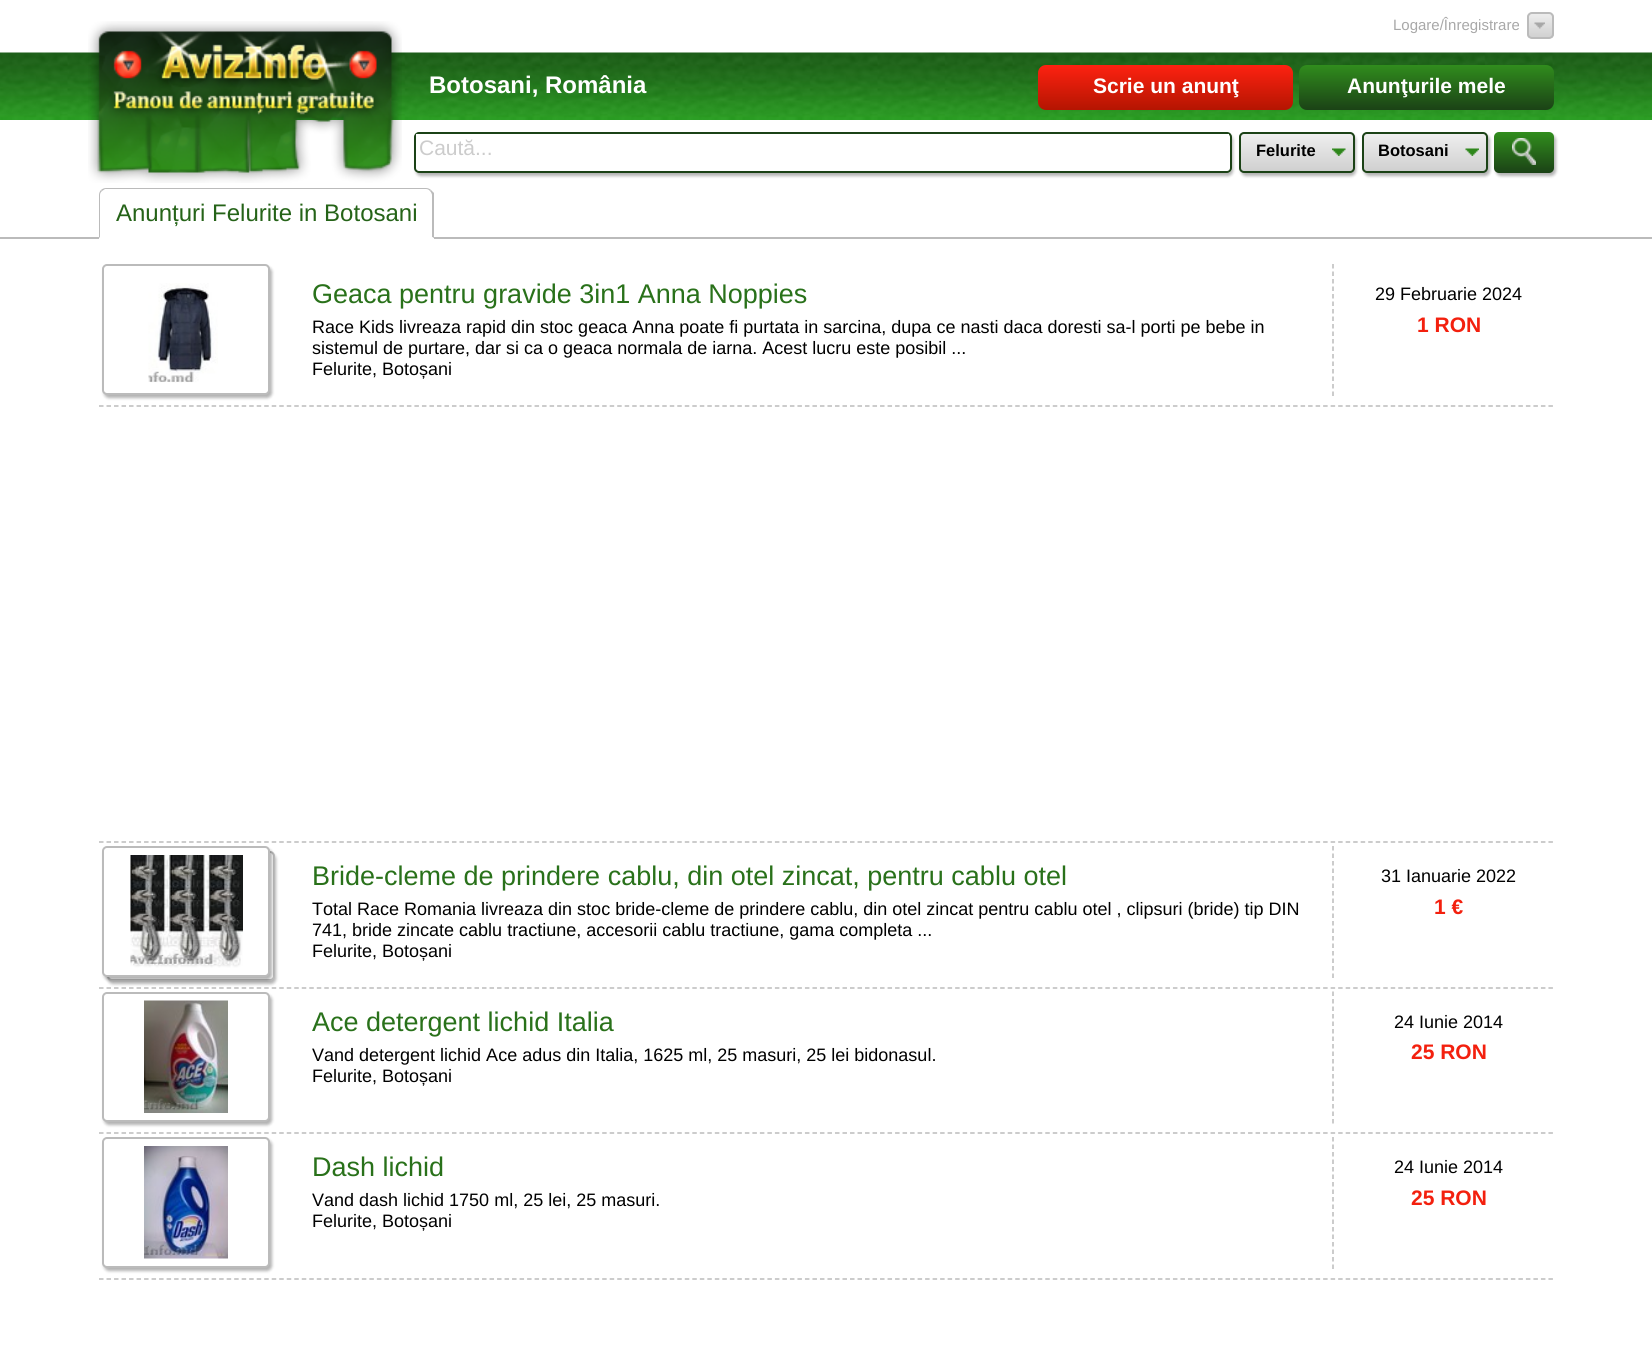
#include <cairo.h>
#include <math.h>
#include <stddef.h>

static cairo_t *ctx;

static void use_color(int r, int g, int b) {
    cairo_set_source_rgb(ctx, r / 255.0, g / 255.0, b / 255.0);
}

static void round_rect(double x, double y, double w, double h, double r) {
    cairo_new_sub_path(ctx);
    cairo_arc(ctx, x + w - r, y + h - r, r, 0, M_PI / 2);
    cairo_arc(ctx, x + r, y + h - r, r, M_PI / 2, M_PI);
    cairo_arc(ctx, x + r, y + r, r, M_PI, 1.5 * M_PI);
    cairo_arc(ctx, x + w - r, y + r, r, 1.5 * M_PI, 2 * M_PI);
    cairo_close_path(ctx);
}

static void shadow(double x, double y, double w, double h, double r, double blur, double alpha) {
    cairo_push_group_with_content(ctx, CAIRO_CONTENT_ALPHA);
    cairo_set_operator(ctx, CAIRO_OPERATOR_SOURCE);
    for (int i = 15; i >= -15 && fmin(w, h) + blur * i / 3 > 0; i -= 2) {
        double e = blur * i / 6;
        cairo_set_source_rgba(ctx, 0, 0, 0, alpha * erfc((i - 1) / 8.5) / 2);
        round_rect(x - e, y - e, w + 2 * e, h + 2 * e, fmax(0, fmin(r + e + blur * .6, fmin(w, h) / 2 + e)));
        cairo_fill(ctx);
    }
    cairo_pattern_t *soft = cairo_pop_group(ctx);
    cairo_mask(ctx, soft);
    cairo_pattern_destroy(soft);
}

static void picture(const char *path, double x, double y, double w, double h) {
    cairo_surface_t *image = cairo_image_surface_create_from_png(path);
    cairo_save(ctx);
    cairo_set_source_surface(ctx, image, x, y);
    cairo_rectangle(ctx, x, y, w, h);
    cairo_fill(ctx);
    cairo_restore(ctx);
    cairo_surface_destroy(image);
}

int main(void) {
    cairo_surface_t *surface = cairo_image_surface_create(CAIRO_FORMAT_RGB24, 1652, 1348);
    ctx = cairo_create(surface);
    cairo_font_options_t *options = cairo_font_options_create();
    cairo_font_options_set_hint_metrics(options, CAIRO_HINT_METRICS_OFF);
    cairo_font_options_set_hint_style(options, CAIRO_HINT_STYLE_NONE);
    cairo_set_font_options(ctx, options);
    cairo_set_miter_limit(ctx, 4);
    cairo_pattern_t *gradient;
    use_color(255, 255, 255);
    cairo_paint(ctx);
    cairo_select_font_face(ctx, "Liberation Sans", CAIRO_FONT_SLANT_NORMAL, CAIRO_FONT_WEIGHT_NORMAL);
    cairo_set_font_size(ctx, 15);
    use_color(168, 168, 168);
    cairo_move_to(ctx, 1393, 30);
    cairo_show_text(ctx, "Logare/Înregistrare");
    cairo_save(ctx);
    round_rect(1527, 12, 27, 27, 5);
    cairo_clip(ctx);
    gradient = cairo_pattern_create_linear(1541, 13, 1541, 38);
    cairo_pattern_add_color_stop_rgba(gradient, 0, 0.933, 0.933, 0.933, 1);
    cairo_pattern_add_color_stop_rgba(gradient, 1, 0.816, 0.816, 0.816, 1);
    cairo_set_source(ctx, gradient);
    cairo_pattern_destroy(gradient);
    cairo_rectangle(ctx, 1527, 14, 27, 24);
    cairo_fill(ctx);
    cairo_restore(ctx);
    round_rect(1528, 13, 25, 25, 4);
    use_color(187, 187, 187);
    cairo_stroke(ctx);
    picture("img1.png", 1534, 22, 11, 7);
    picture("img2.png", 0, 52, 1652, 68);
    cairo_select_font_face(ctx, "Liberation Sans", CAIRO_FONT_SLANT_NORMAL, CAIRO_FONT_WEIGHT_BOLD);
    cairo_set_font_size(ctx, 24);
    use_color(255, 255, 255);
    cairo_move_to(ctx, 429, 93);
    cairo_show_text(ctx, "Botosani, România");
    gradient = cairo_pattern_create_linear(1166, 64, 1166, 110);
    cairo_pattern_add_color_stop_rgba(gradient, 0, 1, 0.133, 0.067, 1);
    cairo_pattern_add_color_stop_rgba(gradient, 1, 0.706, 0.082, 0.004, 1);
    cairo_set_source(ctx, gradient);
    cairo_pattern_destroy(gradient);
    round_rect(1038, 65, 255, 45, 8);
    cairo_fill(ctx);
    cairo_set_font_size(ctx, 21);
    use_color(255, 255, 255);
    cairo_move_to(ctx, 1093, 93);
    cairo_show_text(ctx, "Scrie un anunţ");
    gradient = cairo_pattern_create_linear(1427, 64, 1427, 110);
    cairo_pattern_add_color_stop_rgba(gradient, 0, 0.192, 0.557, 0.114, 1);
    cairo_pattern_add_color_stop_rgba(gradient, 1, 0.106, 0.259, 0.086, 1);
    cairo_set_source(ctx, gradient);
    cairo_pattern_destroy(gradient);
    round_rect(1299, 65, 255, 45, 8);
    cairo_fill(ctx);
    use_color(255, 255, 255);
    cairo_move_to(ctx, 1347, 93);
    cairo_show_text(ctx, "Anunţurile mele");
    picture("img3.png", 88, 21, 314, 162);
    cairo_save(ctx);
    cairo_set_fill_rule(ctx, CAIRO_FILL_RULE_EVEN_ODD);
    cairo_new_path(ctx);
    cairo_move_to(ctx, 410, 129);
    cairo_line_to(ctx, 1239, 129);
    cairo_line_to(ctx, 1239, 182);
    cairo_line_to(ctx, 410, 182);
    cairo_close_path(ctx);
    cairo_move_to(ctx, 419, 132);
    cairo_line_to(ctx, 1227, 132);
    cairo_curve_to(ctx, 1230, 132, 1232, 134, 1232, 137);
    cairo_line_to(ctx, 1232, 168);
    cairo_curve_to(ctx, 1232, 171, 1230, 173, 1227, 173);
    cairo_line_to(ctx, 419, 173);
    cairo_curve_to(ctx, 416, 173, 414, 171, 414, 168);
    cairo_line_to(ctx, 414, 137);
    cairo_curve_to(ctx, 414, 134, 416, 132, 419, 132);
    cairo_close_path(ctx);
    cairo_clip(ctx);
    use_color(0, 0, 0);
    shadow(416, 135, 817, 41, 5, 1.5, 0.3);
    cairo_restore(ctx);
    round_rect(415, 133, 816, 39, 4);
    use_color(27, 66, 22);
    cairo_stroke(ctx);
    use_color(255, 255, 255);
    cairo_rectangle(ctx, 416, 134, 813, 3);
    cairo_fill(ctx);
    cairo_select_font_face(ctx, "Liberation Sans", CAIRO_FONT_SLANT_NORMAL, CAIRO_FONT_WEIGHT_NORMAL);
    use_color(204, 204, 204);
    cairo_move_to(ctx, 419, 155);
    cairo_show_text(ctx, "Caută...");
    use_color(0, 0, 0);
    shadow(1241, 135, 115, 41, 5, 1.5, 0.3);
    cairo_save(ctx);
    round_rect(1239, 132, 116, 41, 5);
    cairo_clip(ctx);
    gradient = cairo_pattern_create_linear(1297, 134, 1297, 171);
    cairo_pattern_add_color_stop_rgba(gradient, 0, 0.933, 0.933, 0.933, 1);
    cairo_pattern_add_color_stop_rgba(gradient, 1, 0.816, 0.816, 0.816, 1);
    cairo_set_source(ctx, gradient);
    cairo_pattern_destroy(gradient);
    cairo_rectangle(ctx, 1239, 134, 116, 37);
    cairo_fill(ctx);
    cairo_restore(ctx);
    round_rect(1240, 133, 114, 39, 4);
    use_color(27, 66, 22);
    cairo_stroke(ctx);
    cairo_select_font_face(ctx, "Liberation Sans", CAIRO_FONT_SLANT_NORMAL, CAIRO_FONT_WEIGHT_BOLD);
    cairo_set_font_size(ctx, 16.5);
    use_color(0, 0, 0);
    cairo_move_to(ctx, 1256, 156);
    cairo_show_text(ctx, "Felurite");
    picture("img4.png", 1332, 148, 14, 8);
    use_color(0, 0, 0);
    shadow(1364, 135, 126, 41, 5, 1.5, 0.3);
    cairo_save(ctx);
    round_rect(1362, 132, 126, 41, 5);
    cairo_clip(ctx);
    gradient = cairo_pattern_create_linear(1425, 134, 1425, 171);
    cairo_pattern_add_color_stop_rgba(gradient, 0, 0.933, 0.933, 0.933, 1);
    cairo_pattern_add_color_stop_rgba(gradient, 1, 0.816, 0.816, 0.816, 1);
    cairo_set_source(ctx, gradient);
    cairo_pattern_destroy(gradient);
    cairo_rectangle(ctx, 1362, 134, 126, 37);
    cairo_fill(ctx);
    cairo_restore(ctx);
    round_rect(1363, 133, 124, 39, 4);
    use_color(27, 66, 22);
    cairo_stroke(ctx);
    use_color(0, 0, 0);
    cairo_move_to(ctx, 1378, 156);
    cairo_show_text(ctx, "Botosani");
    picture("img5.png", 1465, 148, 14, 8);
    use_color(0, 0, 0);
    shadow(1496, 135, 60, 41, 5, 1.5, 0.3);
    gradient = cairo_pattern_create_linear(1524, 132, 1524, 173);
    cairo_pattern_add_color_stop_rgba(gradient, 0, 0.192, 0.557, 0.114, 1);
    cairo_pattern_add_color_stop_rgba(gradient, 1, 0.106, 0.259, 0.086, 1);
    cairo_set_source(ctx, gradient);
    cairo_pattern_destroy(gradient);
    round_rect(1494, 132, 60, 41, 5);
    cairo_fill(ctx);
    picture("img6.png", 1512, 138, 24, 27);
    use_color(187, 187, 187);
    cairo_rectangle(ctx, 0, 237, 1652, 2);
    cairo_fill(ctx);
    use_color(255, 255, 255);
    cairo_new_path(ctx);
    cairo_move_to(ctx, 107, 188);
    cairo_line_to(ctx, 426, 188);
    cairo_curve_to(ctx, 430.5, 188, 434, 191.5, 434, 196);
    cairo_line_to(ctx, 434, 239);
    cairo_line_to(ctx, 99, 239);
    cairo_line_to(ctx, 99, 196);
    cairo_curve_to(ctx, 99, 191.5, 102.5, 188, 107, 188);
    cairo_close_path(ctx);
    cairo_fill(ctx);
    use_color(187, 187, 187);
    cairo_new_path(ctx);
    cairo_move_to(ctx, 106, 188);
    cairo_curve_to(ctx, 104, 188, 102, 189, 101, 190);
    cairo_line_to(ctx, 102, 191);
    cairo_line_to(ctx, 105, 189);
    cairo_line_to(ctx, 426, 189);
    cairo_curve_to(ctx, 428, 189, 429, 190, 430, 191);
    cairo_line_to(ctx, 431, 190);
    cairo_curve_to(ctx, 430, 189, 428, 188, 426, 188);
    cairo_close_path(ctx);
    cairo_fill(ctx);
    cairo_new_path(ctx);
    cairo_move_to(ctx, 431, 190);
    cairo_line_to(ctx, 434, 193);
    cairo_line_to(ctx, 434, 238);
    cairo_line_to(ctx, 432, 237);
    cairo_line_to(ctx, 432, 195);
    cairo_curve_to(ctx, 432, 194, 431, 192, 430, 191);
    cairo_close_path(ctx);
    cairo_fill(ctx);
    use_color(255, 255, 255);
    cairo_new_path(ctx);
    cairo_move_to(ctx, 433, 238);
    cairo_line_to(ctx, 100, 238);
    cairo_line_to(ctx, 100, 237);
    cairo_line_to(ctx, 432, 237);
    cairo_close_path(ctx);
    cairo_fill(ctx);
    use_color(187, 187, 187);
    cairo_new_path(ctx);
    cairo_move_to(ctx, 99, 195);
    cairo_line_to(ctx, 99, 238);
    cairo_line_to(ctx, 100, 237);
    cairo_line_to(ctx, 100, 195);
    cairo_curve_to(ctx, 100, 193, 101, 192, 102, 191);
    cairo_line_to(ctx, 101, 190);
    cairo_curve_to(ctx, 100, 191, 99, 193, 99, 195);
    cairo_close_path(ctx);
    cairo_fill(ctx);
    cairo_select_font_face(ctx, "Liberation Sans", CAIRO_FONT_SLANT_NORMAL, CAIRO_FONT_WEIGHT_NORMAL);
    cairo_set_font_size(ctx, 24);
    use_color(37, 99, 24);
    cairo_move_to(ctx, 116, 221);
    cairo_show_text(ctx, "Anunțuri Felurite in Botosani");
    cairo_new_path(ctx);
    cairo_move_to(ctx, 99, 406);
    cairo_line_to(ctx, 1554, 406);
    use_color(187, 187, 187);
    cairo_set_line_width(ctx, 1.5);
    cairo_set_dash(ctx, (double[]){4.5, 3.01}, 2, 0);
    cairo_stroke(ctx);
    use_color(0, 0, 0);
    shadow(104, 267, 168, 131, 5, 1.5, 0.3);
    use_color(255, 255, 255);
    round_rect(103, 265, 166, 129, 4);
    cairo_fill_preserve(ctx);
    use_color(187, 187, 187);
    cairo_set_line_width(ctx, 2);
    cairo_set_dash(ctx, NULL, 0, 0);
    cairo_stroke(ctx);
    picture("img7.png", 148, 283, 70, 100);
    cairo_new_path(ctx);
    cairo_move_to(ctx, 1333, 264);
    cairo_line_to(ctx, 1333, 396);
    cairo_set_line_width(ctx, 1.5);
    cairo_set_dash(ctx, (double[]){4.5, 3}, 2, 0);
    cairo_stroke(ctx);
    cairo_set_font_size(ctx, 27);
    use_color(41, 113, 26);
    cairo_move_to(ctx, 312, 303);
    cairo_show_text(ctx, "Geaca pentru gravide 3in1 Anna Noppies");
    cairo_set_font_size(ctx, 18);
    use_color(0, 0, 0);
    cairo_move_to(ctx, 312, 333);
    cairo_show_text(ctx, "Race Kids livreaza rapid din stoc geaca Anna poate fi purtata in sarcina, dupa ce nasti daca doresti sa-l porti pe bebe in");
    cairo_move_to(ctx, 312, 354);
    cairo_show_text(ctx, "sistemul de purtare, dar si ca o geaca normala de iarna. Acest lucru este posibil ...");
    cairo_move_to(ctx, 312, 375);
    cairo_show_text(ctx, "Felurite, Botoșani");
    cairo_move_to(ctx, 1375, 300);
    cairo_show_text(ctx, "29 Februarie 2024");
    cairo_select_font_face(ctx, "Liberation Sans", CAIRO_FONT_SLANT_NORMAL, CAIRO_FONT_WEIGHT_BOLD);
    cairo_set_font_size(ctx, 21);
    use_color(243, 32, 14);
    cairo_move_to(ctx, 1417, 332);
    cairo_show_text(ctx, "1 RON");
    cairo_new_path(ctx);
    cairo_move_to(ctx, 99, 842);
    cairo_line_to(ctx, 1554, 842);
    use_color(187, 187, 187);
    cairo_set_dash(ctx, (double[]){4.5, 3.01}, 2, 0);
    cairo_stroke(ctx);
    cairo_new_path(ctx);
    cairo_move_to(ctx, 99, 988);
    cairo_line_to(ctx, 1554, 988);
    cairo_stroke(ctx);
    use_color(0, 0, 0);
    shadow(108, 854, 168, 130, 5, 1.5, 0.3);
    use_color(255, 255, 255);
    round_rect(108, 852, 166, 128, 4);
    cairo_fill_preserve(ctx);
    use_color(187, 187, 187);
    cairo_set_line_width(ctx, 2);
    cairo_set_dash(ctx, NULL, 0, 0);
    cairo_stroke(ctx);
    use_color(0, 0, 0);
    shadow(104, 849, 168, 131, 5, 1.5, 0.3);
    use_color(255, 255, 255);
    round_rect(103, 847, 166, 129, 4);
    cairo_fill_preserve(ctx);
    use_color(187, 187, 187);
    cairo_stroke(ctx);
    picture("img8.png", 130, 855, 113, 113);
    cairo_new_path(ctx);
    cairo_move_to(ctx, 1333, 846);
    cairo_line_to(ctx, 1333, 978);
    cairo_set_line_width(ctx, 1.5);
    cairo_set_dash(ctx, (double[]){4.5, 3}, 2, 0);
    cairo_stroke(ctx);
    cairo_select_font_face(ctx, "Liberation Sans", CAIRO_FONT_SLANT_NORMAL, CAIRO_FONT_WEIGHT_NORMAL);
    cairo_set_font_size(ctx, 27);
    use_color(41, 113, 26);
    cairo_move_to(ctx, 312, 885);
    cairo_show_text(ctx, "Bride-cleme de prindere cablu, din otel zincat, pentru cablu otel");
    cairo_set_font_size(ctx, 18);
    use_color(0, 0, 0);
    cairo_move_to(ctx, 312, 915);
    cairo_show_text(ctx, "Total Race Romania livreaza din stoc bride-cleme de prindere cablu, din otel zincat pentru cablu otel , clipsuri (bride) tip DIN");
    cairo_move_to(ctx, 312, 936);
    cairo_show_text(ctx, "741, bride zincate cablu tractiune, accesorii cablu tractiune, gama completa ...");
    cairo_move_to(ctx, 312, 957);
    cairo_show_text(ctx, "Felurite, Botoșani");
    cairo_move_to(ctx, 1381, 882);
    cairo_show_text(ctx, "31 Ianuarie 2022");
    cairo_select_font_face(ctx, "Liberation Sans", CAIRO_FONT_SLANT_NORMAL, CAIRO_FONT_WEIGHT_BOLD);
    cairo_set_font_size(ctx, 21);
    use_color(243, 32, 14);
    cairo_move_to(ctx, 1434, 914);
    cairo_show_text(ctx, "1 €");
    cairo_new_path(ctx);
    cairo_move_to(ctx, 99, 1133);
    cairo_line_to(ctx, 1554, 1133);
    use_color(187, 187, 187);
    cairo_set_dash(ctx, (double[]){4.5, 3.01}, 2, 0);
    cairo_stroke(ctx);
    use_color(0, 0, 0);
    shadow(104, 995, 168, 130, 5, 1.5, 0.3);
    use_color(255, 255, 255);
    round_rect(103, 993, 166, 128, 4);
    cairo_fill_preserve(ctx);
    use_color(187, 187, 187);
    cairo_set_line_width(ctx, 2);
    cairo_set_dash(ctx, NULL, 0, 0);
    cairo_stroke(ctx);
    picture("img9.png", 144, 1000, 84, 113);
    cairo_new_path(ctx);
    cairo_move_to(ctx, 1333, 991.5);
    cairo_line_to(ctx, 1333, 1123.5);
    cairo_set_line_width(ctx, 1.5);
    cairo_set_dash(ctx, (double[]){4.5, 3}, 2, 0);
    cairo_stroke(ctx);
    cairo_select_font_face(ctx, "Liberation Sans", CAIRO_FONT_SLANT_NORMAL, CAIRO_FONT_WEIGHT_NORMAL);
    cairo_set_font_size(ctx, 27);
    use_color(41, 113, 26);
    cairo_move_to(ctx, 312, 1031);
    cairo_show_text(ctx, "Ace detergent lichid Italia");
    cairo_set_font_size(ctx, 18);
    use_color(0, 0, 0);
    cairo_move_to(ctx, 312, 1061);
    cairo_show_text(ctx, "Vand detergent lichid Ace adus din Italia, 1625 ml, 25 masuri, 25 lei bidonasul.");
    cairo_move_to(ctx, 312, 1082);
    cairo_show_text(ctx, "Felurite, Botoșani");
    cairo_move_to(ctx, 1394, 1028);
    cairo_show_text(ctx, "24 Iunie 2014");
    cairo_select_font_face(ctx, "Liberation Sans", CAIRO_FONT_SLANT_NORMAL, CAIRO_FONT_WEIGHT_BOLD);
    cairo_set_font_size(ctx, 21);
    use_color(243, 32, 14);
    cairo_move_to(ctx, 1411, 1059);
    cairo_show_text(ctx, "25 RON");
    cairo_new_path(ctx);
    cairo_move_to(ctx, 99, 1279);
    cairo_line_to(ctx, 1554, 1279);
    use_color(187, 187, 187);
    cairo_set_dash(ctx, (double[]){4.5, 3.01}, 2, 0);
    cairo_stroke(ctx);
    use_color(0, 0, 0);
    shadow(104, 1140, 168, 131, 5, 1.5, 0.3);
    use_color(255, 255, 255);
    round_rect(103, 1138, 166, 129, 4);
    cairo_fill_preserve(ctx);
    use_color(187, 187, 187);
    cairo_set_line_width(ctx, 2);
    cairo_set_dash(ctx, NULL, 0, 0);
    cairo_stroke(ctx);
    picture("img10.png", 144, 1146, 84, 113);
    cairo_new_path(ctx);
    cairo_move_to(ctx, 1333, 1137);
    cairo_line_to(ctx, 1333, 1269);
    cairo_set_line_width(ctx, 1.5);
    cairo_set_dash(ctx, (double[]){4.5, 3}, 2, 0);
    cairo_stroke(ctx);
    cairo_select_font_face(ctx, "Liberation Sans", CAIRO_FONT_SLANT_NORMAL, CAIRO_FONT_WEIGHT_NORMAL);
    cairo_set_font_size(ctx, 27);
    use_color(41, 113, 26);
    cairo_move_to(ctx, 312, 1176);
    cairo_show_text(ctx, "Dash lichid");
    cairo_set_font_size(ctx, 18);
    use_color(0, 0, 0);
    cairo_move_to(ctx, 312, 1206);
    cairo_show_text(ctx, "Vand dash lichid 1750 ml, 25 lei, 25 masuri.");
    cairo_move_to(ctx, 312, 1227);
    cairo_show_text(ctx, "Felurite, Botoșani");
    cairo_move_to(ctx, 1394, 1173);
    cairo_show_text(ctx, "24 Iunie 2014");
    cairo_select_font_face(ctx, "Liberation Sans", CAIRO_FONT_SLANT_NORMAL, CAIRO_FONT_WEIGHT_BOLD);
    cairo_set_font_size(ctx, 21);
    use_color(243, 32, 14);
    cairo_move_to(ctx, 1411, 1205);
    cairo_show_text(ctx, "25 RON");
    cairo_surface_write_to_png(surface, "result.png");
    cairo_font_options_destroy(options);
    cairo_destroy(ctx);
    cairo_surface_destroy(surface);
    return 0;
}
